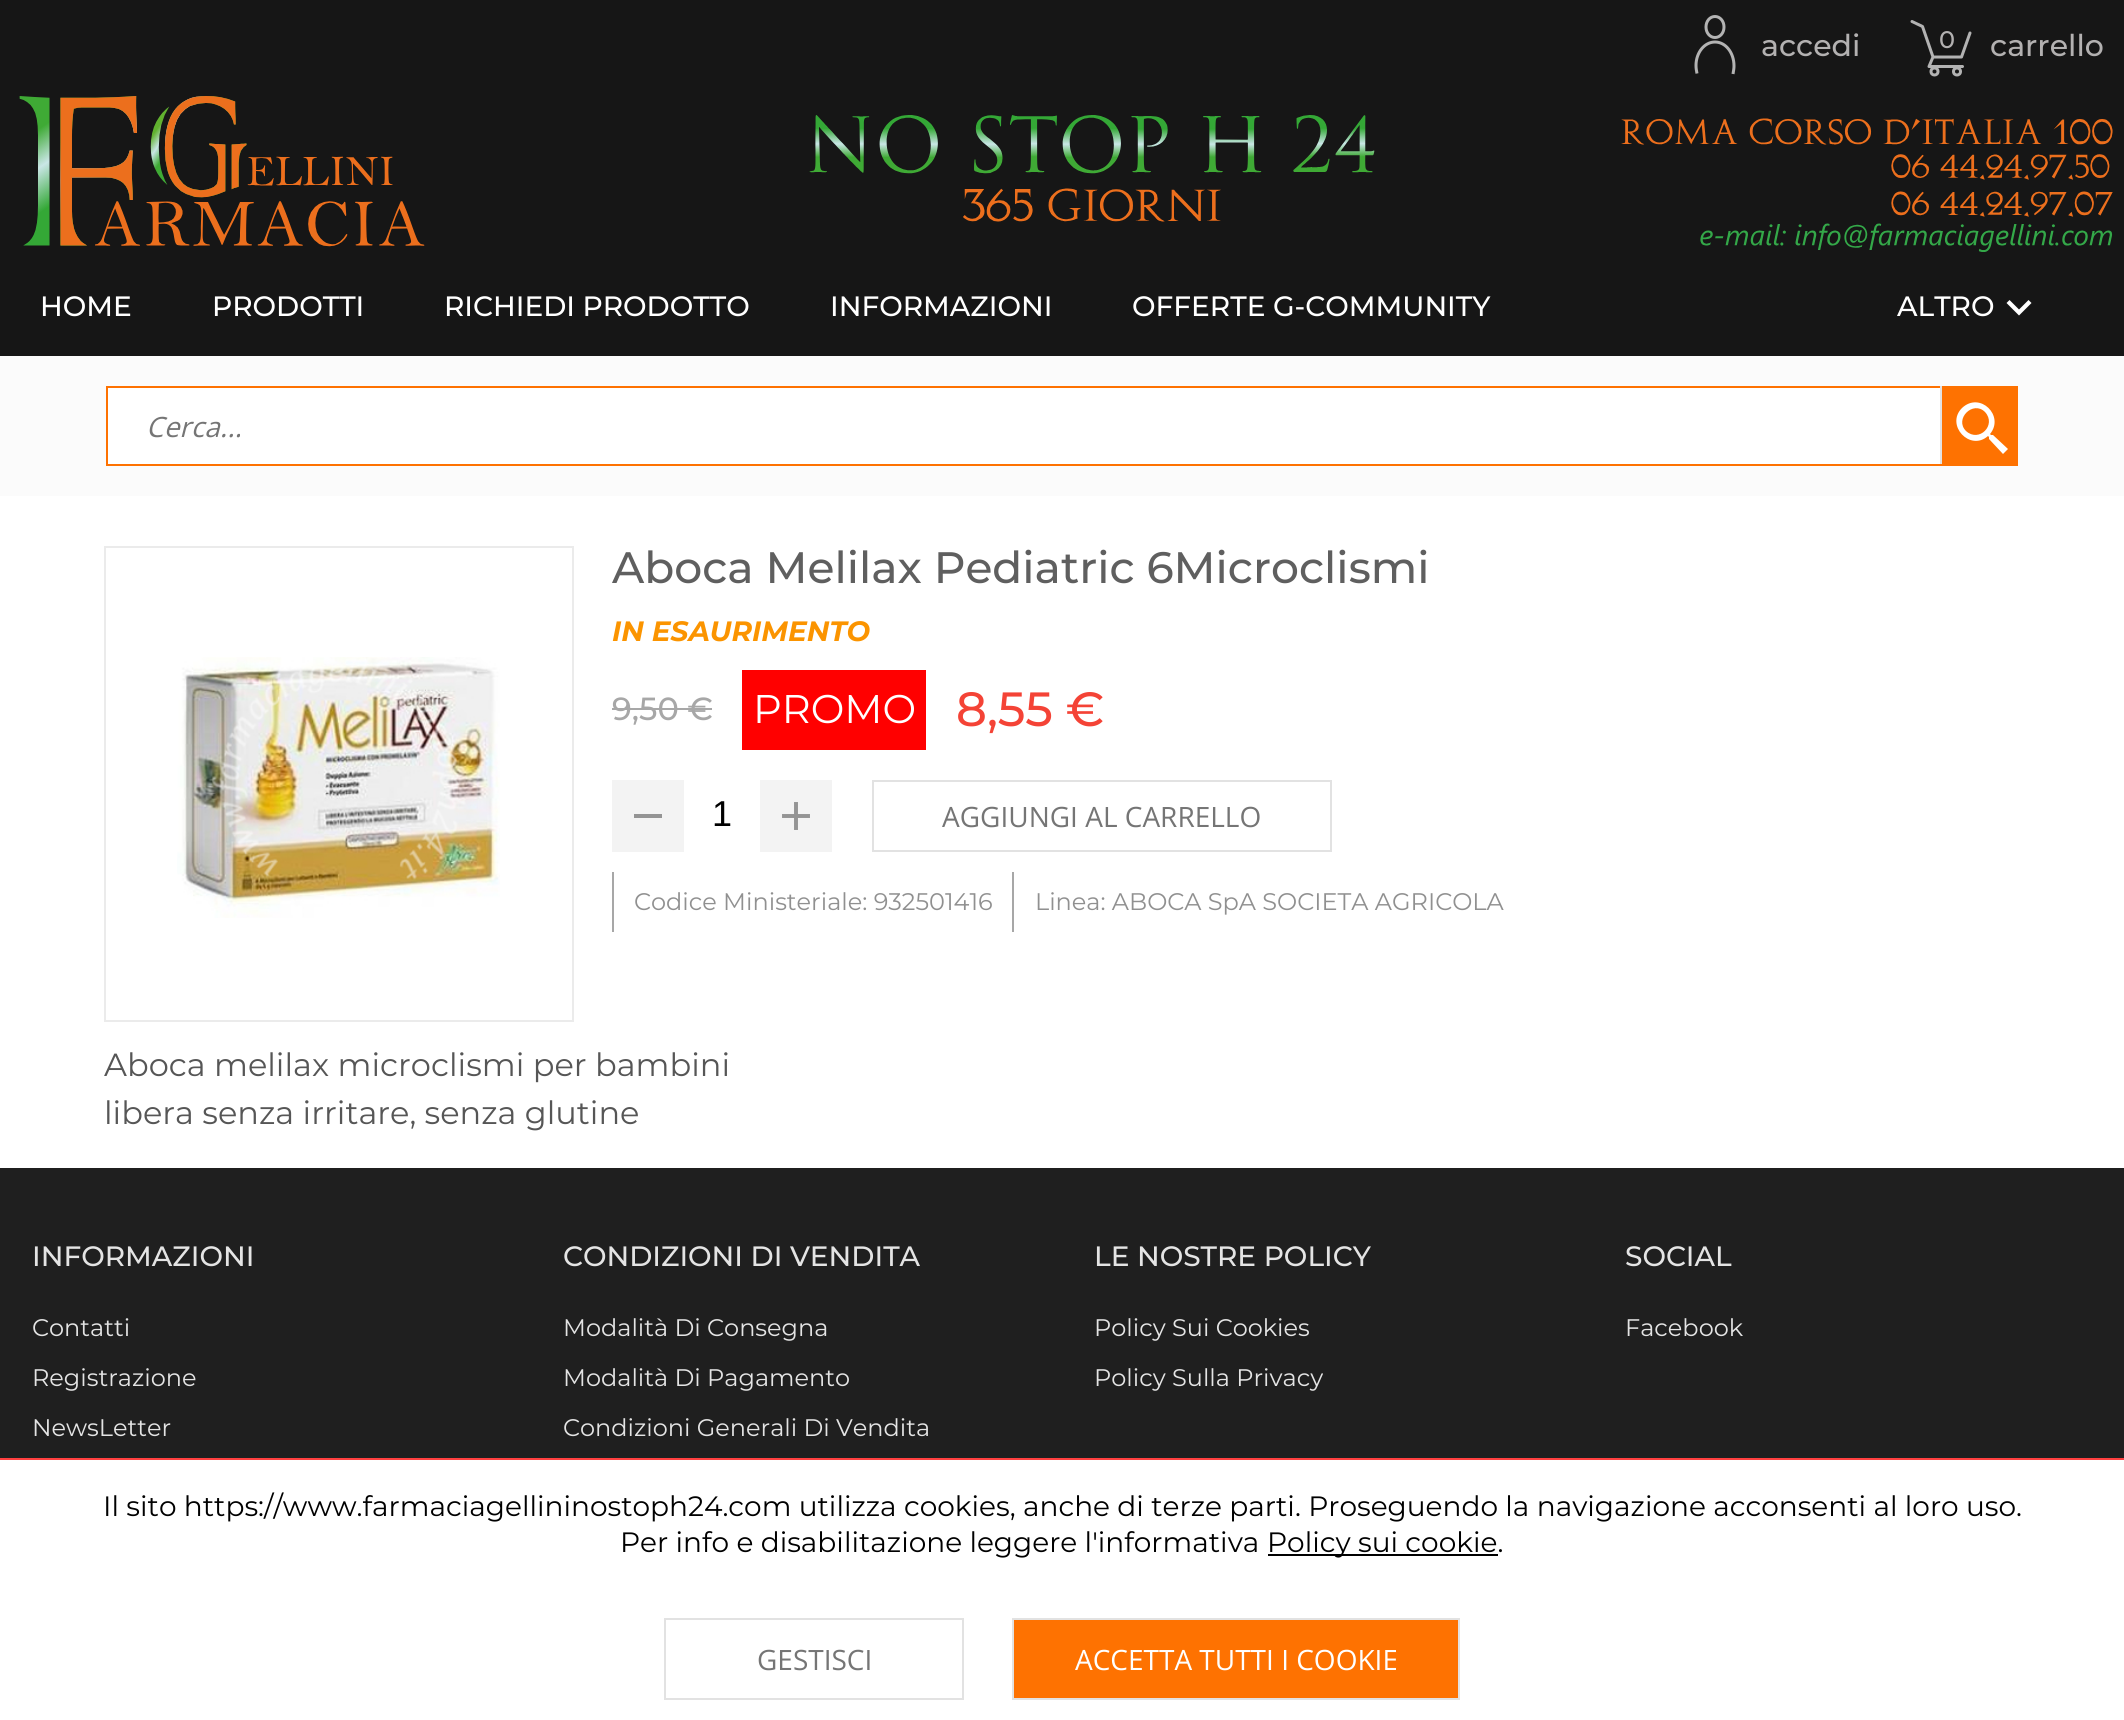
#include <cairo.h>
#include <math.h>
#include <stddef.h>

static cairo_t *ctx;

static void use_color(int r, int g, int b) {
    cairo_set_source_rgb(ctx, r / 255.0, g / 255.0, b / 255.0);
}

static void picture(const char *path, double x, double y, double w, double h) {
    cairo_surface_t *image = cairo_image_surface_create_from_png(path);
    cairo_save(ctx);
    cairo_set_source_surface(ctx, image, x, y);
    cairo_rectangle(ctx, x, y, w, h);
    cairo_fill(ctx);
    cairo_restore(ctx);
    cairo_surface_destroy(image);
}

int main(void) {
    cairo_surface_t *surface = cairo_image_surface_create(CAIRO_FORMAT_RGB24, 2124, 1720);
    ctx = cairo_create(surface);
    cairo_font_options_t *options = cairo_font_options_create();
    cairo_font_options_set_hint_metrics(options, CAIRO_HINT_METRICS_OFF);
    cairo_font_options_set_hint_style(options, CAIRO_HINT_STYLE_NONE);
    cairo_set_font_options(ctx, options);
    cairo_set_miter_limit(ctx, 4);
    use_color(255, 255, 255);
    cairo_paint(ctx);
    use_color(22, 22, 22);
    cairo_rectangle(ctx, 0, 0, 2124, 356);
    cairo_fill(ctx);
    picture("img1.png", 19, 96, 2094, 156);
    cairo_new_path(ctx);
    cairo_move_to(ctx, 1715, 16.5);
    cairo_curve_to(ctx, 1720, 16.5, 1724, 21, 1724, 27);
    cairo_curve_to(ctx, 1724, 33, 1720, 37.5, 1715, 37.5);
    cairo_curve_to(ctx, 1710, 37.5, 1706, 33, 1706, 27);
    cairo_curve_to(ctx, 1706, 21, 1710, 16.5, 1715, 16.5);
    cairo_close_path(ctx);
    use_color(179, 179, 179);
    cairo_set_line_width(ctx, 3);
    cairo_stroke(ctx);
    cairo_new_path(ctx);
    cairo_move_to(ctx, 1697, 73.5);
    cairo_curve_to(ctx, 1696.5, 71, 1696, 68.5, 1696, 65.5);
    cairo_curve_to(ctx, 1696, 52.5, 1704.5, 42, 1715, 42);
    cairo_curve_to(ctx, 1725.5, 42, 1734, 52.5, 1734, 66);
    cairo_curve_to(ctx, 1734, 68.5, 1733.5, 71, 1733, 74);
    cairo_stroke(ctx);
    cairo_select_font_face(ctx, "Montserrat Medium", CAIRO_FONT_SLANT_NORMAL, CAIRO_FONT_WEIGHT_NORMAL);
    cairo_set_font_size(ctx, 30);
    use_color(179, 177, 177);
    cairo_move_to(ctx, 1761, 56);
    cairo_show_text(ctx, "accedi");
    cairo_new_path(ctx);
    cairo_move_to(ctx, 1912, 21.5);
    cairo_line_to(ctx, 1922.5, 26.5);
    cairo_line_to(ctx, 1933, 57);
    cairo_line_to(ctx, 1961.5, 57);
    cairo_line_to(ctx, 1970, 33);
    cairo_move_to(ctx, 1962.5, 66.5);
    cairo_line_to(ctx, 1929, 66.5);
    cairo_line_to(ctx, 1933, 57);
    use_color(179, 179, 179);
    cairo_set_line_cap(ctx, CAIRO_LINE_CAP_ROUND);
    cairo_set_line_join(ctx, CAIRO_LINE_JOIN_ROUND);
    cairo_stroke(ctx);
    cairo_arc(ctx, 1957, 71.5, 3.5, 0, 2 * M_PI);
    cairo_set_line_cap(ctx, CAIRO_LINE_CAP_BUTT);
    cairo_set_line_join(ctx, CAIRO_LINE_JOIN_MITER);
    cairo_stroke(ctx);
    cairo_arc(ctx, 1934.5, 71.5, 3.5, 0, 2 * M_PI);
    cairo_stroke(ctx);
    cairo_set_font_size(ctx, 24);
    use_color(179, 177, 177);
    cairo_move_to(ctx, 1939, 48);
    cairo_show_text(ctx, "0");
    cairo_set_font_size(ctx, 30);
    cairo_move_to(ctx, 1990, 56);
    cairo_show_text(ctx, "carrello");
    cairo_set_font_size(ctx, 28);
    use_color(255, 255, 255);
    cairo_move_to(ctx, 40, 316);
    cairo_show_text(ctx, "HOME");
    cairo_move_to(ctx, 212, 316);
    cairo_show_text(ctx, "PRODOTTI");
    cairo_move_to(ctx, 444, 316);
    cairo_show_text(ctx, "RICHIEDI PRODOTTO");
    cairo_move_to(ctx, 830, 316);
    cairo_show_text(ctx, "INFORMAZIONI");
    cairo_move_to(ctx, 1132, 316);
    cairo_show_text(ctx, "OFFERTE G-COMMUNITY");
    cairo_move_to(ctx, 1897, 316);
    cairo_show_text(ctx, "ALTRO");
    cairo_new_path(ctx);
    cairo_move_to(ctx, 2009.5, 300);
    cairo_line_to(ctx, 2019, 309.5);
    cairo_line_to(ctx, 2028.5, 300);
    cairo_line_to(ctx, 2031.5, 303);
    cairo_line_to(ctx, 2019, 315.5);
    cairo_line_to(ctx, 2006.5, 303);
    cairo_close_path(ctx);
    cairo_fill(ctx);
    use_color(251, 251, 251);
    cairo_rectangle(ctx, 0, 356, 2124, 140);
    cairo_fill(ctx);
    use_color(255, 255, 255);
    cairo_rectangle(ctx, 108, 388, 1832, 76);
    cairo_fill(ctx);
    use_color(254, 114, 1);
    cairo_rectangle(ctx, 106, 386, 1836, 2);
    cairo_fill(ctx);
    use_color(226, 226, 226);
    cairo_rectangle(ctx, 1940, 386, 2, 80);
    cairo_fill(ctx);
    use_color(254, 114, 1);
    cairo_rectangle(ctx, 106, 464, 1836, 2);
    cairo_fill(ctx);
    cairo_rectangle(ctx, 106, 386, 2, 80);
    cairo_fill(ctx);
    cairo_select_font_face(ctx, "Open Sans", CAIRO_FONT_SLANT_ITALIC, CAIRO_FONT_WEIGHT_NORMAL);
    use_color(117, 117, 117);
    cairo_move_to(ctx, 146, 437);
    cairo_show_text(ctx, "Cerca...");
    use_color(254, 114, 1);
    cairo_rectangle(ctx, 1942, 386, 76, 80);
    cairo_fill(ctx);
    use_color(255, 255, 255);
    cairo_new_path(ctx);
    cairo_move_to(ctx, 1966, 431);
    cairo_curve_to(ctx, 1979, 443, 1997, 425, 1985, 412);
    cairo_curve_to(ctx, 1973, 400, 1954, 419, 1966, 431);
    cairo_close_path(ctx);
    cairo_move_to(ctx, 1993, 435);
    cairo_line_to(ctx, 2008, 449);
    cairo_line_to(ctx, 2003, 454);
    cairo_line_to(ctx, 1989, 439);
    cairo_line_to(ctx, 1989, 437);
    cairo_line_to(ctx, 1988, 436);
    cairo_curve_to(ctx, 1970, 452, 1945, 425, 1962, 408);
    cairo_curve_to(ctx, 1980, 391, 2005, 416, 1990, 434);
    cairo_line_to(ctx, 1991, 435);
    cairo_close_path(ctx);
    cairo_fill(ctx);
    cairo_rectangle(ctx, 105, 547, 468, 474);
    use_color(235, 235, 235);
    cairo_set_line_width(ctx, 2);
    cairo_stroke(ctx);
    picture("img2.png", 177, 657, 323, 261);
    cairo_select_font_face(ctx, "Montserrat Medium", CAIRO_FONT_SLANT_NORMAL, CAIRO_FONT_WEIGHT_NORMAL);
    cairo_set_font_size(ctx, 44);
    use_color(95, 95, 95);
    cairo_move_to(ctx, 612, 583);
    cairo_show_text(ctx, "Aboca Melilax Pediatric 6Microclismi");
    cairo_select_font_face(ctx, "Montserrat", CAIRO_FONT_SLANT_ITALIC, CAIRO_FONT_WEIGHT_BOLD);
    cairo_set_font_size(ctx, 28);
    use_color(251, 148, 0);
    cairo_move_to(ctx, 612, 641);
    cairo_show_text(ctx, "IN ESAURIMENTO");
    cairo_select_font_face(ctx, "Montserrat Medium", CAIRO_FONT_SLANT_NORMAL, CAIRO_FONT_WEIGHT_NORMAL);
    cairo_set_font_size(ctx, 32);
    use_color(167, 167, 167);
    cairo_move_to(ctx, 612, 720);
    cairo_show_text(ctx, "9,50 €");
    cairo_rectangle(ctx, 612, 708, 100, 2);
    cairo_fill(ctx);
    use_color(255, 0, 0);
    cairo_rectangle(ctx, 742, 670, 184, 80);
    cairo_fill(ctx);
    cairo_select_font_face(ctx, "Montserrat", CAIRO_FONT_SLANT_NORMAL, CAIRO_FONT_WEIGHT_NORMAL);
    cairo_set_font_size(ctx, 40);
    use_color(255, 255, 255);
    cairo_move_to(ctx, 753, 723);
    cairo_show_text(ctx, "PROMO");
    cairo_select_font_face(ctx, "Montserrat Medium", CAIRO_FONT_SLANT_NORMAL, CAIRO_FONT_WEIGHT_NORMAL);
    cairo_set_font_size(ctx, 48);
    use_color(244, 67, 54);
    cairo_move_to(ctx, 956, 726);
    cairo_show_text(ctx, "8,55 €");
    use_color(243, 243, 243);
    cairo_rectangle(ctx, 612, 780, 72, 72);
    cairo_fill(ctx);
    use_color(148, 148, 148);
    cairo_rectangle(ctx, 634, 814, 28, 4);
    cairo_fill(ctx);
    cairo_select_font_face(ctx, "Liberation Sans", CAIRO_FONT_SLANT_NORMAL, CAIRO_FONT_WEIGHT_NORMAL);
    cairo_set_font_size(ctx, 36);
    use_color(0, 0, 0);
    cairo_move_to(ctx, 712, 826);
    cairo_show_text(ctx, "1");
    use_color(243, 243, 243);
    cairo_rectangle(ctx, 760, 780, 72, 72);
    cairo_fill(ctx);
    picture("img3.png", 782, 802, 28, 28);
    cairo_rectangle(ctx, 873, 781, 458, 70);
    use_color(226, 226, 226);
    cairo_stroke(ctx);
    cairo_select_font_face(ctx, "Open Sans", CAIRO_FONT_SLANT_NORMAL, CAIRO_FONT_WEIGHT_NORMAL);
    cairo_set_font_size(ctx, 28);
    use_color(117, 117, 117);
    cairo_move_to(ctx, 942, 827);
    cairo_show_text(ctx, "AGGIUNGI AL CARRELLO");
    use_color(167, 167, 167);
    cairo_rectangle(ctx, 612, 872, 2, 60);
    cairo_fill(ctx);
    cairo_select_font_face(ctx, "Montserrat", CAIRO_FONT_SLANT_NORMAL, CAIRO_FONT_WEIGHT_NORMAL);
    cairo_set_font_size(ctx, 24);
    use_color(144, 144, 144);
    cairo_move_to(ctx, 634, 910);
    cairo_show_text(ctx, "Codice Ministeriale: 932501416");
    use_color(167, 167, 167);
    cairo_rectangle(ctx, 1012, 872, 2, 60);
    cairo_fill(ctx);
    use_color(144, 144, 144);
    cairo_move_to(ctx, 1035, 910);
    cairo_show_text(ctx, "Linea: ABOCA SpA SOCIETA AGRICOLA");
    cairo_set_font_size(ctx, 32);
    use_color(86, 86, 86);
    cairo_move_to(ctx, 104, 1076);
    cairo_show_text(ctx, "Aboca melilax microclismi per bambini");
    cairo_move_to(ctx, 104, 1124);
    cairo_show_text(ctx, "libera senza irritare, senza glutine");
    use_color(31, 31, 31);
    cairo_rectangle(ctx, 0, 1168, 2124, 290);
    cairo_fill(ctx);
    cairo_select_font_face(ctx, "Montserrat Medium", CAIRO_FONT_SLANT_NORMAL, CAIRO_FONT_WEIGHT_NORMAL);
    cairo_set_font_size(ctx, 28);
    use_color(228, 228, 228);
    cairo_move_to(ctx, 32, 1266);
    cairo_show_text(ctx, "INFORMAZIONI");
    cairo_select_font_face(ctx, "Montserrat", CAIRO_FONT_SLANT_NORMAL, CAIRO_FONT_WEIGHT_NORMAL);
    cairo_set_font_size(ctx, 24);
    cairo_move_to(ctx, 32, 1336);
    cairo_show_text(ctx, "Contatti");
    cairo_move_to(ctx, 32, 1386);
    cairo_show_text(ctx, "Registrazione");
    cairo_move_to(ctx, 32, 1436);
    cairo_show_text(ctx, "NewsLetter");
    cairo_select_font_face(ctx, "Montserrat Medium", CAIRO_FONT_SLANT_NORMAL, CAIRO_FONT_WEIGHT_NORMAL);
    cairo_set_font_size(ctx, 28);
    cairo_move_to(ctx, 563, 1266);
    cairo_show_text(ctx, "CONDIZIONI DI VENDITA");
    cairo_select_font_face(ctx, "Montserrat", CAIRO_FONT_SLANT_NORMAL, CAIRO_FONT_WEIGHT_NORMAL);
    cairo_set_font_size(ctx, 24);
    cairo_move_to(ctx, 563, 1336);
    cairo_show_text(ctx, "Modalità Di Consegna");
    cairo_move_to(ctx, 563, 1386);
    cairo_show_text(ctx, "Modalità Di Pagamento");
    cairo_move_to(ctx, 563, 1436);
    cairo_show_text(ctx, "Condizioni Generali Di Vendita");
    cairo_select_font_face(ctx, "Montserrat Medium", CAIRO_FONT_SLANT_NORMAL, CAIRO_FONT_WEIGHT_NORMAL);
    cairo_set_font_size(ctx, 28);
    cairo_move_to(ctx, 1094, 1266);
    cairo_show_text(ctx, "LE NOSTRE POLICY");
    cairo_select_font_face(ctx, "Montserrat", CAIRO_FONT_SLANT_NORMAL, CAIRO_FONT_WEIGHT_NORMAL);
    cairo_set_font_size(ctx, 24);
    cairo_move_to(ctx, 1094, 1336);
    cairo_show_text(ctx, "Policy Sui Cookies");
    cairo_move_to(ctx, 1094, 1386);
    cairo_show_text(ctx, "Policy Sulla Privacy");
    cairo_select_font_face(ctx, "Montserrat Medium", CAIRO_FONT_SLANT_NORMAL, CAIRO_FONT_WEIGHT_NORMAL);
    cairo_set_font_size(ctx, 28);
    cairo_move_to(ctx, 1625, 1266);
    cairo_show_text(ctx, "SOCIAL");
    cairo_select_font_face(ctx, "Montserrat", CAIRO_FONT_SLANT_NORMAL, CAIRO_FONT_WEIGHT_NORMAL);
    cairo_set_font_size(ctx, 24);
    cairo_move_to(ctx, 1625, 1336);
    cairo_show_text(ctx, "Facebook");
    use_color(255, 64, 64);
    cairo_rectangle(ctx, 0, 1458, 2124, 2);
    cairo_fill(ctx);
    cairo_set_font_size(ctx, 28);
    use_color(0, 0, 0);
    cairo_move_to(ctx, 103, 1516);
    cairo_show_text(ctx, "Il sito https://www.farmaciagellininostoph24.com utilizza cookies, anche di terze parti. Proseguendo la navigazione acconsenti al loro uso.");
    cairo_move_to(ctx, 620, 1552);
    cairo_show_text(ctx, "Per info e disabilitazione leggere l'informativa");
    cairo_rectangle(ctx, 1268, 1554, 230, 2);
    cairo_fill(ctx);
    cairo_move_to(ctx, 1267, 1552);
    cairo_show_text(ctx, "Policy sui cookie.");
    cairo_rectangle(ctx, 665, 1619, 298, 80);
    use_color(226, 226, 226);
    cairo_stroke(ctx);
    cairo_select_font_face(ctx, "Open Sans", CAIRO_FONT_SLANT_NORMAL, CAIRO_FONT_WEIGHT_NORMAL);
    use_color(117, 117, 117);
    cairo_move_to(ctx, 757, 1670);
    cairo_show_text(ctx, "GESTISCI");
    use_color(254, 114, 1);
    cairo_rectangle(ctx, 1013, 1619, 446, 80);
    cairo_fill_preserve(ctx);
    use_color(226, 226, 226);
    cairo_stroke(ctx);
    use_color(255, 255, 255);
    cairo_move_to(ctx, 1075, 1670);
    cairo_show_text(ctx, "ACCETTA TUTTI I COOKIE");
    cairo_surface_write_to_png(surface, "result.png");
    cairo_font_options_destroy(options);
    cairo_destroy(ctx);
    cairo_surface_destroy(surface);
    return 0;
}
